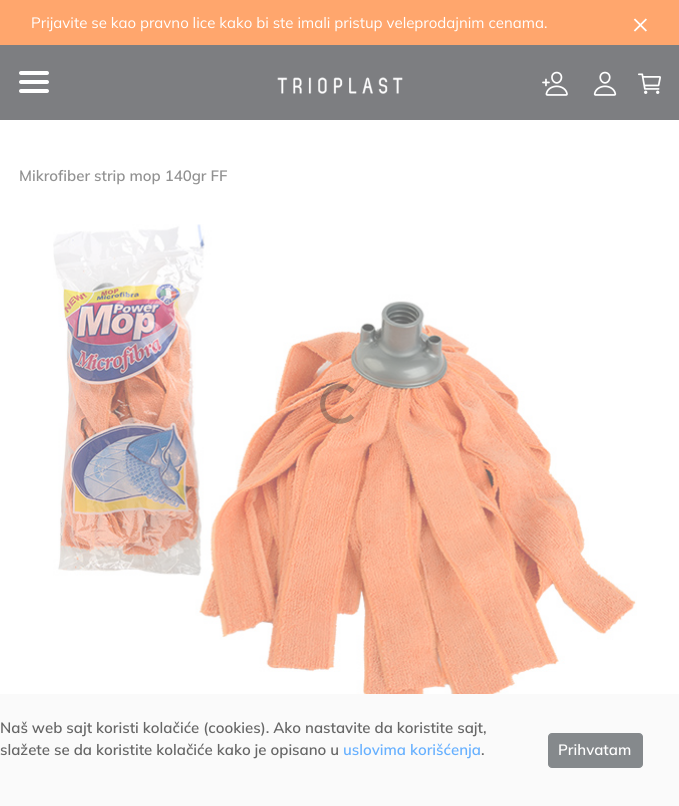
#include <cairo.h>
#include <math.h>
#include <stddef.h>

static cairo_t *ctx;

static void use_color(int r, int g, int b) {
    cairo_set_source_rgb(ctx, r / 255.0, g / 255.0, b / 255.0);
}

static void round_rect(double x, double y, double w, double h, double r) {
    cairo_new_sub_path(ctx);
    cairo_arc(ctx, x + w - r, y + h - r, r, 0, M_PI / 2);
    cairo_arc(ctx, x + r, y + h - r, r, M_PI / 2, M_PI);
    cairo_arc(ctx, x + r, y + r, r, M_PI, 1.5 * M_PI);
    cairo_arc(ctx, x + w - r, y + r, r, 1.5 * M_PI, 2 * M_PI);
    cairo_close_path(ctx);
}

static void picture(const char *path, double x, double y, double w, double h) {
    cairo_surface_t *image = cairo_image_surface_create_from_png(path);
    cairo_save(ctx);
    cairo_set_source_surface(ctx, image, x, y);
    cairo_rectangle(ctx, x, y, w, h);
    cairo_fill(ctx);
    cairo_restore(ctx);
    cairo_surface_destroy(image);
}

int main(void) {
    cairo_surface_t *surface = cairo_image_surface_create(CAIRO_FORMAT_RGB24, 679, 806);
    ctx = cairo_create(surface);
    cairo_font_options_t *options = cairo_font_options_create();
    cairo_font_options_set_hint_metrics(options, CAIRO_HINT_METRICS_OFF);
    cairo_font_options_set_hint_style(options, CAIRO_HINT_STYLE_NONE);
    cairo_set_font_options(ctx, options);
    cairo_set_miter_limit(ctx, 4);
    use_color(255, 255, 255);
    cairo_paint(ctx);
    use_color(255, 166, 109);
    cairo_rectangle(ctx, 0, 0, 679, 45);
    cairo_fill(ctx);
    cairo_select_font_face(ctx, "Mulish", CAIRO_FONT_SLANT_NORMAL, CAIRO_FONT_WEIGHT_NORMAL);
    cairo_set_font_size(ctx, 15);
    use_color(255, 255, 255);
    cairo_move_to(ctx, 31, 28);
    cairo_show_text(ctx, "Prijavite se kao pravno lice kako bi ste imali pristup veleprodajnim cenama.");
    cairo_set_font_size(ctx, 28);
    cairo_move_to(ctx, 632, 33);
    cairo_show_text(ctx, "×");
    use_color(125, 126, 129);
    cairo_rectangle(ctx, 0, 45, 679, 75);
    cairo_fill(ctx);
    use_color(255, 255, 255);
    round_rect(19, 80, 30, 4, 2);
    cairo_fill(ctx);
    round_rect(19, 71, 30, 4, 2);
    cairo_fill(ctx);
    round_rect(19, 89, 30, 4, 2);
    cairo_fill(ctx);
    picture("img1.png", 277, 77, 126, 17);
    picture("img2.png", 542, 71, 26, 25);
    picture("img3.png", 593, 71, 24, 25);
    picture("img4.png", 638, 73, 23, 21);
    cairo_select_font_face(ctx, "Mulish SemiBold", CAIRO_FONT_SLANT_NORMAL, CAIRO_FONT_WEIGHT_NORMAL);
    cairo_set_font_size(ctx, 15);
    use_color(145, 145, 145);
    cairo_move_to(ctx, 19, 181);
    cairo_show_text(ctx, "Mikrofiber strip mop 140gr FF");
    picture("img5.png", 53, 224, 584, 470);
    cairo_new_path(ctx);
    cairo_move_to(ctx, 352.5, 416);
    cairo_curve_to(ctx, 348.5, 420, 342.5, 422, 336.5, 421);
    cairo_curve_to(ctx, 316, 417, 319, 386.5, 340, 386);
    cairo_curve_to(ctx, 344.5, 386, 349, 388, 352.5, 391.5);
    cairo_set_source_rgba(ctx, 0.282, 0.282, 0.282, 0.4);
    cairo_set_line_width(ctx, 5);
    cairo_stroke(ctx);
    use_color(250, 250, 250);
    cairo_rectangle(ctx, 0, 694, 679, 112);
    cairo_fill(ctx);
    use_color(102, 102, 102);
    cairo_move_to(ctx, 0, 733);
    cairo_show_text(ctx, "Naš web sajt koristi kolačiće (cookies). Ako nastavite da koristite sajt,");
    cairo_move_to(ctx, 0, 755);
    cairo_show_text(ctx, "slažete se da koristite kolačiće kako je opisano u");
    use_color(102, 176, 255);
    cairo_move_to(ctx, 343, 755);
    cairo_show_text(ctx, "uslovima korišćenja");
    use_color(102, 102, 102);
    cairo_move_to(ctx, 481, 755);
    cairo_show_text(ctx, ".");
    use_color(133, 137, 140);
    round_rect(548.5, 733.5, 94, 34, 3.5);
    cairo_fill_preserve(ctx);
    cairo_set_line_width(ctx, 1);
    cairo_stroke(ctx);
    use_color(255, 255, 255);
    cairo_move_to(ctx, 558, 755);
    cairo_show_text(ctx, "Prihvatam");
    cairo_surface_write_to_png(surface, "result.png");
    cairo_font_options_destroy(options);
    cairo_destroy(ctx);
    cairo_surface_destroy(surface);
    return 0;
}
